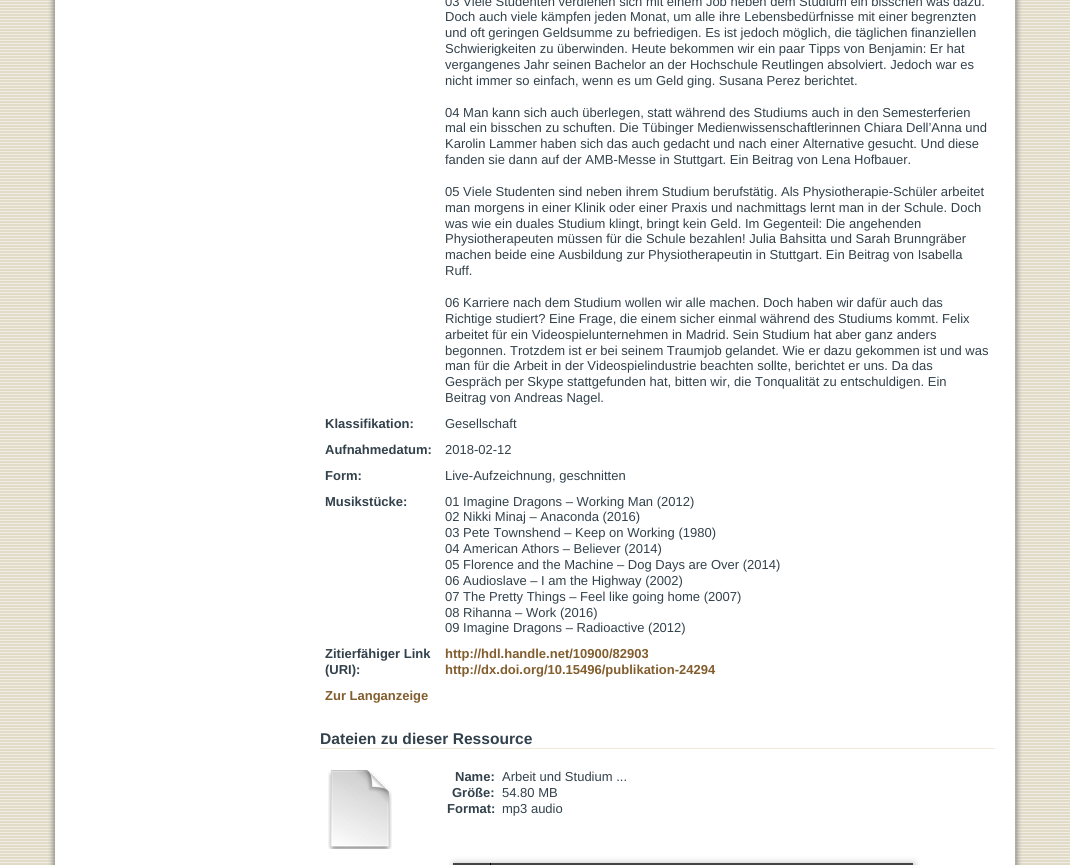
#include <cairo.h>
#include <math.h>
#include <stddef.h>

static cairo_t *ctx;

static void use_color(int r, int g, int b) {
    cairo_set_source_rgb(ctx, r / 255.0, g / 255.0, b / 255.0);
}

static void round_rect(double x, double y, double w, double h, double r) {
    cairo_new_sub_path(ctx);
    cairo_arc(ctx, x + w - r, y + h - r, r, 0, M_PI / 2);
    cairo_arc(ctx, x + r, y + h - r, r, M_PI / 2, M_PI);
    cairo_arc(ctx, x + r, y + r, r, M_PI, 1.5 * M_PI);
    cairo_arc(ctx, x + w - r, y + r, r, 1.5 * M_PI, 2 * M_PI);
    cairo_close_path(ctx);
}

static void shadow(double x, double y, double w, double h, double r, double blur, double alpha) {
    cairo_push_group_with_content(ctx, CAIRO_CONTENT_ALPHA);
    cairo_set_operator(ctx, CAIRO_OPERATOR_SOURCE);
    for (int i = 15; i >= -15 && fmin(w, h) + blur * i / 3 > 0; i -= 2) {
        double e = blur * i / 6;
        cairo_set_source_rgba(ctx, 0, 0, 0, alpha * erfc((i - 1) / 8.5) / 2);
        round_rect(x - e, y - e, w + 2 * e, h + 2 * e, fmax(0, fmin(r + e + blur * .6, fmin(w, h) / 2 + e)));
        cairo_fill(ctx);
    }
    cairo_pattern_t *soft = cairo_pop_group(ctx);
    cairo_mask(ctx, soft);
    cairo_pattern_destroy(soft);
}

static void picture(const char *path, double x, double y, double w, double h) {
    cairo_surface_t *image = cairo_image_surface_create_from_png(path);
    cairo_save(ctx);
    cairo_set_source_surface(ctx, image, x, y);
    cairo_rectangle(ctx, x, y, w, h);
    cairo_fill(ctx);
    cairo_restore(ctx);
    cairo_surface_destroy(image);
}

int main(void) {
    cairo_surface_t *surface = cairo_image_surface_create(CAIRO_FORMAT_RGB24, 1070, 865);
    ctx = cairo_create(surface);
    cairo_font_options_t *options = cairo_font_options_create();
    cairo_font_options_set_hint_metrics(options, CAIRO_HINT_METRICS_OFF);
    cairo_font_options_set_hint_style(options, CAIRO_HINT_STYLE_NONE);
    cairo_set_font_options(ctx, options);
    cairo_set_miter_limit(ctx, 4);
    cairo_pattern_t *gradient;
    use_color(255, 255, 255);
    cairo_paint(ctx);
    picture("img1.png", 0, 0, 1070, 865);
    picture("img2.png", 48, 0, 975, 865);
    cairo_select_font_face(ctx, "Liberation Sans", CAIRO_FONT_SLANT_NORMAL, CAIRO_FONT_WEIGHT_NORMAL);
    cairo_set_font_size(ctx, 13);
    use_color(50, 65, 75);
    cairo_move_to(ctx, 445, 6);
    cairo_show_text(ctx, "03 Viele Studenten verdienen sich mit einem Job neben dem Studium ein bisschen was dazu.");
    cairo_move_to(ctx, 445, 21);
    cairo_show_text(ctx, "Doch auch viele kämpfen jeden Monat, um alle ihre Lebensbedürfnisse mit einer begrenzten");
    cairo_move_to(ctx, 445, 37);
    cairo_show_text(ctx, "und oft geringen Geldsumme zu befriedigen. Es ist jedoch möglich, die täglichen finanziellen");
    cairo_move_to(ctx, 445, 53);
    cairo_show_text(ctx, "Schwierigkeiten zu überwinden. Heute bekommen wir ein paar Tipps von Benjamin: Er hat");
    cairo_move_to(ctx, 445, 69);
    cairo_show_text(ctx, "vergangenes Jahr seinen Bachelor an der Hochschule Reutlingen absolviert. Jedoch war es");
    cairo_move_to(ctx, 445, 85);
    cairo_show_text(ctx, "nicht immer so einfach, wenn es um Geld ging. Susana Perez berichtet.");
    cairo_move_to(ctx, 445, 117);
    cairo_show_text(ctx, "04 Man kann sich auch überlegen, statt während des Studiums auch in den Semesterferien");
    cairo_move_to(ctx, 445, 132);
    cairo_show_text(ctx, "mal ein bisschen zu schuften. Die Tübinger Medienwissenschaftlerinnen Chiara Dell’Anna und");
    cairo_move_to(ctx, 445, 148);
    cairo_show_text(ctx, "Karolin Lammer haben sich das auch gedacht und nach einer Alternative gesucht. Und diese");
    cairo_move_to(ctx, 445, 164);
    cairo_show_text(ctx, "fanden sie dann auf der AMB-Messe in Stuttgart. Ein Beitrag von Lena Hofbauer.");
    cairo_move_to(ctx, 445, 196);
    cairo_show_text(ctx, "05 Viele Studenten sind neben ihrem Studium berufstätig. Als Physiotherapie-Schüler arbeitet");
    cairo_move_to(ctx, 445, 212);
    cairo_show_text(ctx, "man morgens in einer Klinik oder einer Praxis und nachmittags lernt man in der Schule. Doch");
    cairo_move_to(ctx, 445, 228);
    cairo_show_text(ctx, "was wie ein duales Studium klingt, bringt kein Geld. Im Gegenteil: Die angehenden");
    cairo_move_to(ctx, 445, 243);
    cairo_show_text(ctx, "Physiotherapeuten müssen für die Schule bezahlen! Julia Bahsitta und Sarah Brunngräber");
    cairo_move_to(ctx, 445, 259);
    cairo_show_text(ctx, "machen beide eine Ausbildung zur Physiotherapeutin in Stuttgart. Ein Beitrag von Isabella");
    cairo_move_to(ctx, 445, 275);
    cairo_show_text(ctx, "Ruff.");
    cairo_move_to(ctx, 445, 307);
    cairo_show_text(ctx, "06 Karriere nach dem Studium wollen wir alle machen. Doch haben wir dafür auch das");
    cairo_move_to(ctx, 445, 323);
    cairo_show_text(ctx, "Richtige studiert? Eine Frage, die einem sicher einmal während des Studiums kommt. Felix");
    cairo_move_to(ctx, 445, 339);
    cairo_show_text(ctx, "arbeitet für ein Videospielunternehmen in Madrid. Sein Studium hat aber ganz anders");
    cairo_move_to(ctx, 445, 355);
    cairo_show_text(ctx, "begonnen. Trotzdem ist er bei seinem Traumjob gelandet. Wie er dazu gekommen ist und was");
    cairo_move_to(ctx, 445, 370);
    cairo_show_text(ctx, "man für die Arbeit in der Videospielindustrie beachten sollte, berichtet er uns. Da das");
    cairo_move_to(ctx, 445, 386);
    cairo_show_text(ctx, "Gespräch per Skype stattgefunden hat, bitten wir, die Tonqualität zu entschuldigen. Ein");
    cairo_move_to(ctx, 445, 402);
    cairo_show_text(ctx, "Beitrag von Andreas Nagel.");
    cairo_select_font_face(ctx, "Liberation Sans", CAIRO_FONT_SLANT_NORMAL, CAIRO_FONT_WEIGHT_BOLD);
    cairo_move_to(ctx, 325, 428);
    cairo_show_text(ctx, "Klassifikation:");
    cairo_select_font_face(ctx, "Liberation Sans", CAIRO_FONT_SLANT_NORMAL, CAIRO_FONT_WEIGHT_NORMAL);
    cairo_move_to(ctx, 445, 428);
    cairo_show_text(ctx, "Gesellschaft");
    cairo_select_font_face(ctx, "Liberation Sans", CAIRO_FONT_SLANT_NORMAL, CAIRO_FONT_WEIGHT_BOLD);
    cairo_move_to(ctx, 325, 454);
    cairo_show_text(ctx, "Aufnahmedatum:");
    cairo_select_font_face(ctx, "Liberation Sans", CAIRO_FONT_SLANT_NORMAL, CAIRO_FONT_WEIGHT_NORMAL);
    cairo_move_to(ctx, 445, 454);
    cairo_show_text(ctx, "2018-02-12");
    cairo_select_font_face(ctx, "Liberation Sans", CAIRO_FONT_SLANT_NORMAL, CAIRO_FONT_WEIGHT_BOLD);
    cairo_move_to(ctx, 325, 480);
    cairo_show_text(ctx, "Form:");
    cairo_select_font_face(ctx, "Liberation Sans", CAIRO_FONT_SLANT_NORMAL, CAIRO_FONT_WEIGHT_NORMAL);
    cairo_move_to(ctx, 445, 480);
    cairo_show_text(ctx, "Live-Aufzeichnung, geschnitten");
    cairo_select_font_face(ctx, "Liberation Sans", CAIRO_FONT_SLANT_NORMAL, CAIRO_FONT_WEIGHT_BOLD);
    cairo_move_to(ctx, 325, 506);
    cairo_show_text(ctx, "Musikstücke:");
    cairo_select_font_face(ctx, "Liberation Sans", CAIRO_FONT_SLANT_NORMAL, CAIRO_FONT_WEIGHT_NORMAL);
    cairo_move_to(ctx, 445, 506);
    cairo_show_text(ctx, "01 Imagine Dragons – Working Man (2012)");
    cairo_move_to(ctx, 445, 521);
    cairo_show_text(ctx, "02 Nikki Minaj – Anaconda (2016)");
    cairo_move_to(ctx, 445, 537);
    cairo_show_text(ctx, "03 Pete Townshend – Keep on Working (1980)");
    cairo_move_to(ctx, 445, 553);
    cairo_show_text(ctx, "04 American Athors – Believer (2014)");
    cairo_move_to(ctx, 445, 569);
    cairo_show_text(ctx, "05 Florence and the Machine – Dog Days are Over (2014)");
    cairo_move_to(ctx, 445, 585);
    cairo_show_text(ctx, "06 Audioslave – I am the Highway (2002)");
    cairo_move_to(ctx, 445, 601);
    cairo_show_text(ctx, "07 The Pretty Things – Feel like going home (2007)");
    cairo_move_to(ctx, 445, 617);
    cairo_show_text(ctx, "08 Rihanna – Work (2016)");
    cairo_move_to(ctx, 445, 632);
    cairo_show_text(ctx, "09 Imagine Dragons – Radioactive (2012)");
    cairo_select_font_face(ctx, "Liberation Sans", CAIRO_FONT_SLANT_NORMAL, CAIRO_FONT_WEIGHT_BOLD);
    cairo_move_to(ctx, 325, 658);
    cairo_show_text(ctx, "Zitierfähiger Link");
    cairo_move_to(ctx, 325, 674);
    cairo_show_text(ctx, "(URI):");
    use_color(130, 93, 45);
    cairo_move_to(ctx, 445, 658);
    cairo_show_text(ctx, "http://hdl.handle.net/10900/82903");
    cairo_move_to(ctx, 445, 674);
    cairo_show_text(ctx, "http://dx.doi.org/10.15496/publikation-24294");
    cairo_move_to(ctx, 325, 700);
    cairo_show_text(ctx, "Zur Langanzeige");
    use_color(240, 233, 216);
    cairo_rectangle(ctx, 320, 748, 675, 1);
    cairo_fill(ctx);
    cairo_set_font_size(ctx, 15.6);
    use_color(50, 65, 75);
    cairo_move_to(ctx, 320, 744);
    cairo_show_text(ctx, "Dateien zu dieser Ressource");
    picture("img3.png", 328, 770, 64, 79);
    cairo_set_font_size(ctx, 13);
    cairo_move_to(ctx, 455, 781);
    cairo_show_text(ctx, "Name:");
    cairo_select_font_face(ctx, "Liberation Sans", CAIRO_FONT_SLANT_NORMAL, CAIRO_FONT_WEIGHT_NORMAL);
    cairo_move_to(ctx, 502, 781);
    cairo_show_text(ctx, "Arbeit und Studium ...");
    cairo_select_font_face(ctx, "Liberation Sans", CAIRO_FONT_SLANT_NORMAL, CAIRO_FONT_WEIGHT_BOLD);
    cairo_move_to(ctx, 452, 797);
    cairo_show_text(ctx, "Größe:");
    cairo_select_font_face(ctx, "Liberation Sans", CAIRO_FONT_SLANT_NORMAL, CAIRO_FONT_WEIGHT_NORMAL);
    cairo_move_to(ctx, 502, 797);
    cairo_show_text(ctx, "54.80 MB");
    cairo_select_font_face(ctx, "Liberation Sans", CAIRO_FONT_SLANT_NORMAL, CAIRO_FONT_WEIGHT_BOLD);
    cairo_move_to(ctx, 447, 813);
    cairo_show_text(ctx, "Format:");
    cairo_select_font_face(ctx, "Liberation Sans", CAIRO_FONT_SLANT_NORMAL, CAIRO_FONT_WEIGHT_NORMAL);
    cairo_move_to(ctx, 502, 813);
    cairo_show_text(ctx, "mp3 audio");
    use_color(0, 0, 0);
    shadow(454, 864, 460, 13, 0, 4, 0.3);
    gradient = cairo_pattern_create_linear(453, 863, 453, 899);
    cairo_pattern_add_color_stop_rgba(gradient, 0, 0.267, 0.267, 0.267, 1);
    cairo_pattern_add_color_stop_rgba(gradient, 0.5, 0.333, 0.333, 0.333, 1);
    cairo_pattern_add_color_stop_rgba(gradient, 0.51, 0.267, 0.267, 0.267, 1);
    cairo_pattern_add_color_stop_rgba(gradient, 1, 0.267, 0.267, 0.267, 1);
    cairo_set_source(ctx, gradient);
    cairo_pattern_destroy(gradient);
    cairo_rectangle(ctx, 453, 863, 460, 2);
    cairo_fill(ctx);
    use_color(0, 0, 0);
    cairo_rectangle(ctx, 490, 863, 1, 2);
    cairo_fill(ctx);
    cairo_surface_write_to_png(surface, "result.png");
    cairo_font_options_destroy(options);
    cairo_destroy(ctx);
    cairo_surface_destroy(surface);
    return 0;
}
